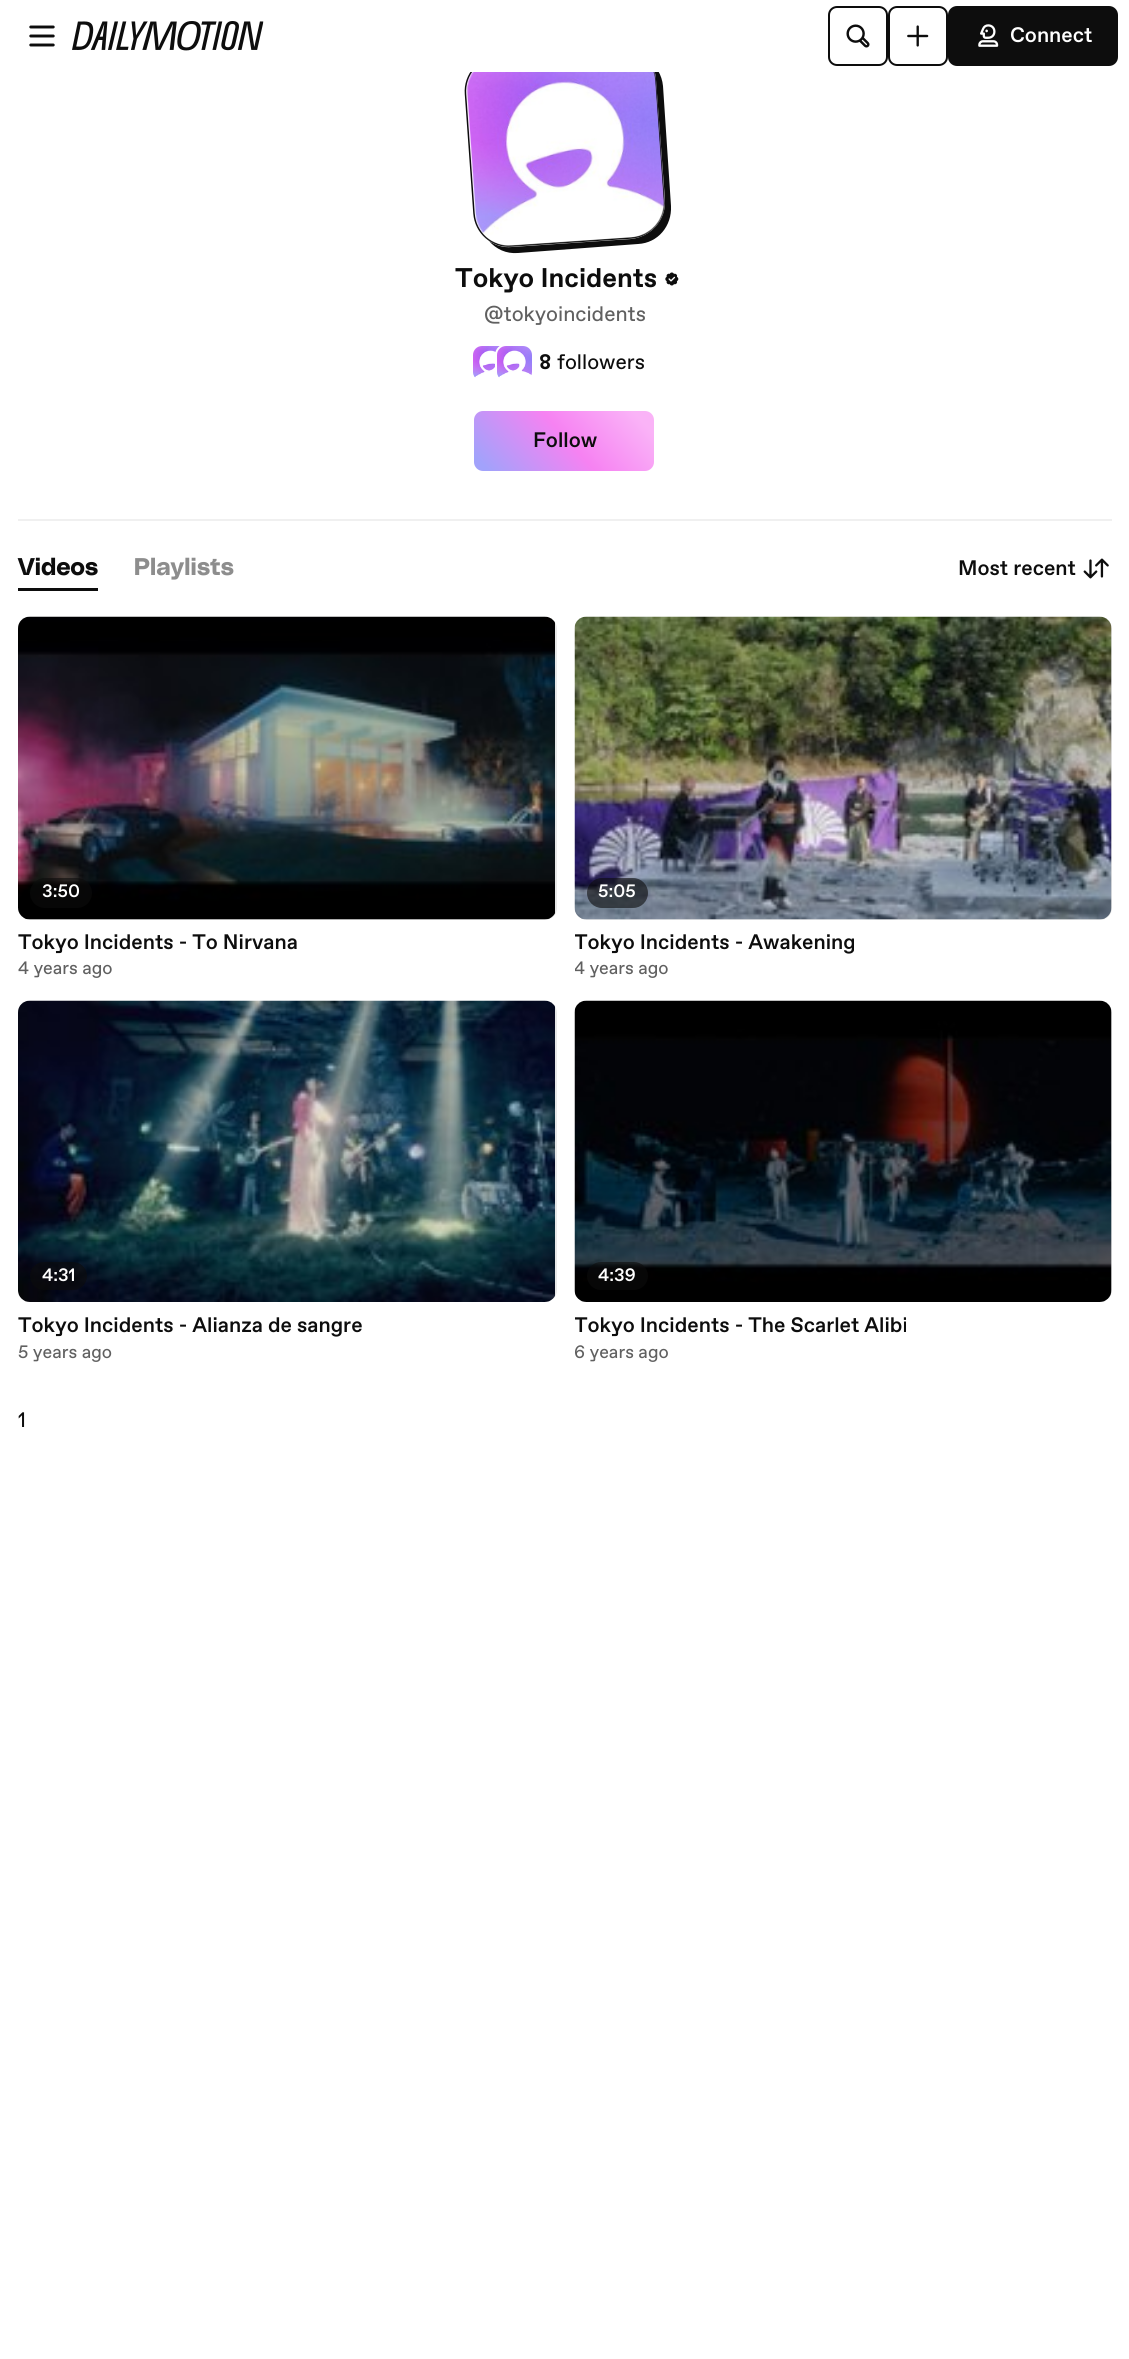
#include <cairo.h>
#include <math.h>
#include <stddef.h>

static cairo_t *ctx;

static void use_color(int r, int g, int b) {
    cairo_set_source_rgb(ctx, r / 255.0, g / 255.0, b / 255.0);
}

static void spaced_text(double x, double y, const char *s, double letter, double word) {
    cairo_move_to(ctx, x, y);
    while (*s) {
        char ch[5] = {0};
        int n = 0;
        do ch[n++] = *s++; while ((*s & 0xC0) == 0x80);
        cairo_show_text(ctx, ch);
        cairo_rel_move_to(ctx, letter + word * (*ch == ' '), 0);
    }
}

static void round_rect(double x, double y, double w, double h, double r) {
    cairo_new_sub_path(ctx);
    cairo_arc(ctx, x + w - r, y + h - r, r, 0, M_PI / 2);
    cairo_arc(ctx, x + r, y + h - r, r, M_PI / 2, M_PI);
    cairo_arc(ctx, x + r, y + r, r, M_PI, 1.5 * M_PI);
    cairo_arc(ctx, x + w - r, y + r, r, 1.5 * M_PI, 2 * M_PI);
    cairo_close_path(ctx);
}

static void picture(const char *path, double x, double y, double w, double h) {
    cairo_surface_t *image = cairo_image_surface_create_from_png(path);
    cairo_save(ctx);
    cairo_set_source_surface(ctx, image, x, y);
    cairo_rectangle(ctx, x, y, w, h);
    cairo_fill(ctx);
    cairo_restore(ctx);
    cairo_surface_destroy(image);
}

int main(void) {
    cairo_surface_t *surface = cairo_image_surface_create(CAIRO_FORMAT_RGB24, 1129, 2359);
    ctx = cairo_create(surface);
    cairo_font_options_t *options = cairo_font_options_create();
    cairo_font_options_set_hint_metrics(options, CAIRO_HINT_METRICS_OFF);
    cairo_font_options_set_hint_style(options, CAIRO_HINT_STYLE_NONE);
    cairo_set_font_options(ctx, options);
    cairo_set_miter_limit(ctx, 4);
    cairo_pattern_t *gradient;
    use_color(255, 255, 255);
    cairo_paint(ctx);
    use_color(13, 13, 13);
    cairo_new_path(ctx);
    cairo_move_to(ctx, 489, 241);
    cairo_curve_to(ctx, 496, 249, 506, 254, 518, 253);
    cairo_line_to(ctx, 638, 244);
    cairo_curve_to(ctx, 658, 243, 672, 226, 671, 206);
    cairo_line_to(ctx, 663, 86);
    cairo_curve_to(ctx, 662, 75, 656, 65, 647, 59);
    cairo_curve_to(ctx, 652, 65, 656, 72, 656, 80);
    cairo_line_to(ctx, 665, 200);
    cairo_curve_to(ctx, 666, 220, 651, 237, 631, 239);
    cairo_line_to(ctx, 512, 247);
    cairo_curve_to(ctx, 503, 248, 495, 245, 489, 241);
    cairo_close_path(ctx);
    cairo_fill(ctx);
    cairo_new_path(ctx);
    cairo_move_to(ctx, 498.5, 56);
    cairo_line_to(ctx, 618, 48);
    cairo_curve_to(ctx, 637.5, 46.5, 654, 61, 655.5, 80.5);
    cairo_line_to(ctx, 664, 200);
    cairo_curve_to(ctx, 665.5, 219.5, 650.5, 236.5, 631, 238);
    cairo_line_to(ctx, 511.5, 246);
    cairo_curve_to(ctx, 492, 247.5, 475.5, 233, 474, 213.5);
    cairo_line_to(ctx, 465.5, 94);
    cairo_curve_to(ctx, 464, 74.5, 479, 57.5, 498.5, 56);
    cairo_close_path(ctx);
    cairo_set_line_width(ctx, 1.5);
    cairo_stroke(ctx);
    use_color(255, 255, 255);
    cairo_rectangle(ctx, 470, 47, 189, 25);
    cairo_fill(ctx);
    picture("img1.png", 29, 25, 26, 22);
    picture("img2.png", 72, 21, 192, 30);
    round_rect(829, 7, 58, 58, 8);
    use_color(13, 13, 13);
    cairo_set_line_width(ctx, 2);
    cairo_stroke(ctx);
    picture("img3.png", 846, 24, 24, 24);
    round_rect(889, 7, 58, 58, 8);
    cairo_stroke(ctx);
    picture("img4.png", 907, 25, 22, 22);
    round_rect(949, 7, 168, 58, 8);
    cairo_fill_preserve(ctx);
    cairo_stroke(ctx);
    picture("img5.png", 978, 24, 21, 23);
    cairo_select_font_face(ctx, "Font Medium", CAIRO_FONT_SLANT_NORMAL, CAIRO_FONT_WEIGHT_NORMAL);
    cairo_set_font_size(ctx, 21);
    use_color(255, 255, 255);
    cairo_move_to(ctx, 1010, 42);
    cairo_show_text(ctx, "Connect");
    use_color(240, 240, 240);
    cairo_rectangle(ctx, 18, 519, 1094, 2);
    cairo_fill(ctx);
    picture("img6.png", 466, 72, 199, 175);
    cairo_select_font_face(ctx, "Font", CAIRO_FONT_SLANT_NORMAL, CAIRO_FONT_WEIGHT_BOLD);
    cairo_set_font_size(ctx, 27);
    use_color(13, 13, 13);
    cairo_move_to(ctx, 455, 287);
    cairo_show_text(ctx, "Tokyo Incidents");
    picture("img7.png", 665, 272, 14, 14);
    cairo_select_font_face(ctx, "Font", CAIRO_FONT_SLANT_NORMAL, CAIRO_FONT_WEIGHT_NORMAL);
    cairo_set_font_size(ctx, 21);
    use_color(96, 96, 96);
    cairo_move_to(ctx, 484, 321);
    cairo_show_text(ctx, "@tokyoincidents");
    picture("img8.png", 473, 345, 28, 33);
    round_rect(472, 345, 37, 37, 10);
    use_color(255, 255, 255);
    cairo_stroke(ctx);
    picture("img9.png", 497, 345, 35, 33);
    round_rect(496, 345, 37, 37, 10);
    cairo_stroke(ctx);
    cairo_select_font_face(ctx, "Font", CAIRO_FONT_SLANT_NORMAL, CAIRO_FONT_WEIGHT_BOLD);
    use_color(13, 13, 13);
    cairo_move_to(ctx, 539, 369);
    cairo_show_text(ctx, "8");
    cairo_select_font_face(ctx, "Font", CAIRO_FONT_SLANT_NORMAL, CAIRO_FONT_WEIGHT_NORMAL);
    cairo_move_to(ctx, 557, 369);
    cairo_show_text(ctx, "followers");
    gradient = cairo_pattern_create_linear(629, 383, 499, 499);
    cairo_pattern_add_color_stop_rgba(gradient, 0.09, 0.98, 0.702, 0.969, 1);
    cairo_pattern_add_color_stop_rgba(gradient, 0.48, 0.965, 0.51, 0.949, 1);
    cairo_pattern_add_color_stop_rgba(gradient, 0.94, 0.635, 0.635, 0.984, 1);
    cairo_set_source(ctx, gradient);
    cairo_pattern_destroy(gradient);
    round_rect(474, 411, 180, 60, 9);
    cairo_fill(ctx);
    cairo_select_font_face(ctx, "Font Medium", CAIRO_FONT_SLANT_NORMAL, CAIRO_FONT_WEIGHT_NORMAL);
    use_color(13, 13, 13);
    cairo_move_to(ctx, 533, 447);
    cairo_show_text(ctx, "Follow");
    cairo_new_path(ctx);
    cairo_move_to(ctx, 18, 588);
    cairo_line_to(ctx, 18, 591);
    cairo_line_to(ctx, 98, 591);
    cairo_line_to(ctx, 98, 554);
    cairo_line_to(ctx, 98, 588);
    cairo_close_path(ctx);
    cairo_fill(ctx);
    cairo_select_font_face(ctx, "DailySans", CAIRO_FONT_SLANT_NORMAL, CAIRO_FONT_WEIGHT_BOLD);
    cairo_set_font_size(ctx, 24);
    spaced_text(18, 575, "Videos", 0.25, 0);
    use_color(141, 141, 141);
    spaced_text(134, 575, "Playlists", 0.25, 0);
    cairo_select_font_face(ctx, "Font Medium", CAIRO_FONT_SLANT_NORMAL, CAIRO_FONT_WEIGHT_NORMAL);
    cairo_set_font_size(ctx, 21);
    use_color(13, 13, 13);
    cairo_move_to(ctx, 958, 575);
    cairo_show_text(ctx, "Most recent");
    picture("img10.png", 1083, 558, 26, 21);
    use_color(232, 232, 232);
    round_rect(18, 617, 539, 303, 12);
    cairo_fill(ctx);
    picture("img11.png", 18, 616, 537, 304);
    cairo_set_source_rgba(ctx, 0.051, 0.051, 0.051, 0.6);
    round_rect(30, 878, 62, 30, 15);
    cairo_fill(ctx);
    cairo_set_font_size(ctx, 18);
    use_color(255, 255, 255);
    cairo_move_to(ctx, 42, 897);
    cairo_show_text(ctx, "3:50");
    cairo_set_font_size(ctx, 21);
    use_color(13, 13, 13);
    cairo_move_to(ctx, 18, 949);
    cairo_show_text(ctx, "Tokyo Incidents - To Nirvana");
    cairo_select_font_face(ctx, "Font", CAIRO_FONT_SLANT_NORMAL, CAIRO_FONT_WEIGHT_NORMAL);
    cairo_set_font_size(ctx, 18);
    use_color(96, 96, 96);
    cairo_move_to(ctx, 18, 974);
    cairo_show_text(ctx, "4 years ago");
    use_color(232, 232, 232);
    round_rect(575, 617, 537, 303, 12);
    cairo_fill(ctx);
    picture("img12.png", 574, 616, 538, 304);
    cairo_set_source_rgba(ctx, 0.051, 0.051, 0.051, 0.6);
    round_rect(587, 878, 61, 30, 15);
    cairo_fill(ctx);
    cairo_select_font_face(ctx, "Font Medium", CAIRO_FONT_SLANT_NORMAL, CAIRO_FONT_WEIGHT_NORMAL);
    use_color(255, 255, 255);
    cairo_move_to(ctx, 598, 897);
    cairo_show_text(ctx, "5:05");
    cairo_save(ctx);
    cairo_rectangle(ctx, 575, 932, 537, 24);
    cairo_clip(ctx);
    cairo_set_font_size(ctx, 21);
    use_color(13, 13, 13);
    cairo_move_to(ctx, 574, 949);
    cairo_show_text(ctx, "Tokyo Incidents - Awakening");
    cairo_restore(ctx);
    cairo_save(ctx);
    cairo_rectangle(ctx, 575, 956, 525, 27);
    cairo_clip(ctx);
    cairo_select_font_face(ctx, "Font", CAIRO_FONT_SLANT_NORMAL, CAIRO_FONT_WEIGHT_NORMAL);
    use_color(96, 96, 96);
    cairo_move_to(ctx, 574, 974);
    cairo_show_text(ctx, "4 years ago");
    cairo_restore(ctx);
    use_color(232, 232, 232);
    round_rect(18, 1001, 539, 301, 12);
    cairo_fill(ctx);
    picture("img13.png", 18, 1000, 537, 302);
    cairo_set_source_rgba(ctx, 0.051, 0.051, 0.051, 0.6);
    round_rect(30, 1262, 57, 28, 14);
    cairo_fill(ctx);
    use_color(255, 255, 255);
    cairo_move_to(ctx, 42, 1281);
    cairo_show_text(ctx, "4:31");
    cairo_set_font_size(ctx, 21);
    use_color(13, 13, 13);
    cairo_move_to(ctx, 18, 1332);
    cairo_show_text(ctx, "Tokyo Incidents - Alianza de sangre");
    cairo_select_font_face(ctx, "Font", CAIRO_FONT_SLANT_NORMAL, CAIRO_FONT_WEIGHT_NORMAL);
    cairo_set_font_size(ctx, 18);
    use_color(96, 96, 96);
    cairo_move_to(ctx, 18, 1358);
    cairo_show_text(ctx, "5 years ago");
    use_color(232, 232, 232);
    round_rect(575, 1001, 537, 301, 12);
    cairo_fill(ctx);
    picture("img14.png", 574, 1000, 538, 302);
    cairo_set_source_rgba(ctx, 0.051, 0.051, 0.051, 0.6);
    round_rect(587, 1262, 61, 28, 14);
    cairo_fill(ctx);
    cairo_select_font_face(ctx, "Font Medium", CAIRO_FONT_SLANT_NORMAL, CAIRO_FONT_WEIGHT_NORMAL);
    use_color(255, 255, 255);
    cairo_move_to(ctx, 598, 1281);
    cairo_show_text(ctx, "4:39");
    cairo_save(ctx);
    cairo_rectangle(ctx, 575, 1314, 537, 24);
    cairo_clip(ctx);
    cairo_set_font_size(ctx, 21);
    use_color(13, 13, 13);
    cairo_move_to(ctx, 574, 1332);
    cairo_show_text(ctx, "Tokyo Incidents - The Scarlet Alibi");
    cairo_restore(ctx);
    cairo_save(ctx);
    cairo_rectangle(ctx, 575, 1338, 525, 27);
    cairo_clip(ctx);
    cairo_select_font_face(ctx, "Font", CAIRO_FONT_SLANT_NORMAL, CAIRO_FONT_WEIGHT_NORMAL);
    use_color(96, 96, 96);
    cairo_move_to(ctx, 574, 1358);
    cairo_show_text(ctx, "6 years ago");
    cairo_restore(ctx);
    cairo_select_font_face(ctx, "Font", CAIRO_FONT_SLANT_NORMAL, CAIRO_FONT_WEIGHT_NORMAL);
    cairo_set_font_size(ctx, 21);
    use_color(13, 13, 13);
    cairo_move_to(ctx, 18, 1427);
    cairo_show_text(ctx, "1");
    cairo_surface_write_to_png(surface, "result.png");
    cairo_font_options_destroy(options);
    cairo_destroy(ctx);
    cairo_surface_destroy(surface);
    return 0;
}
